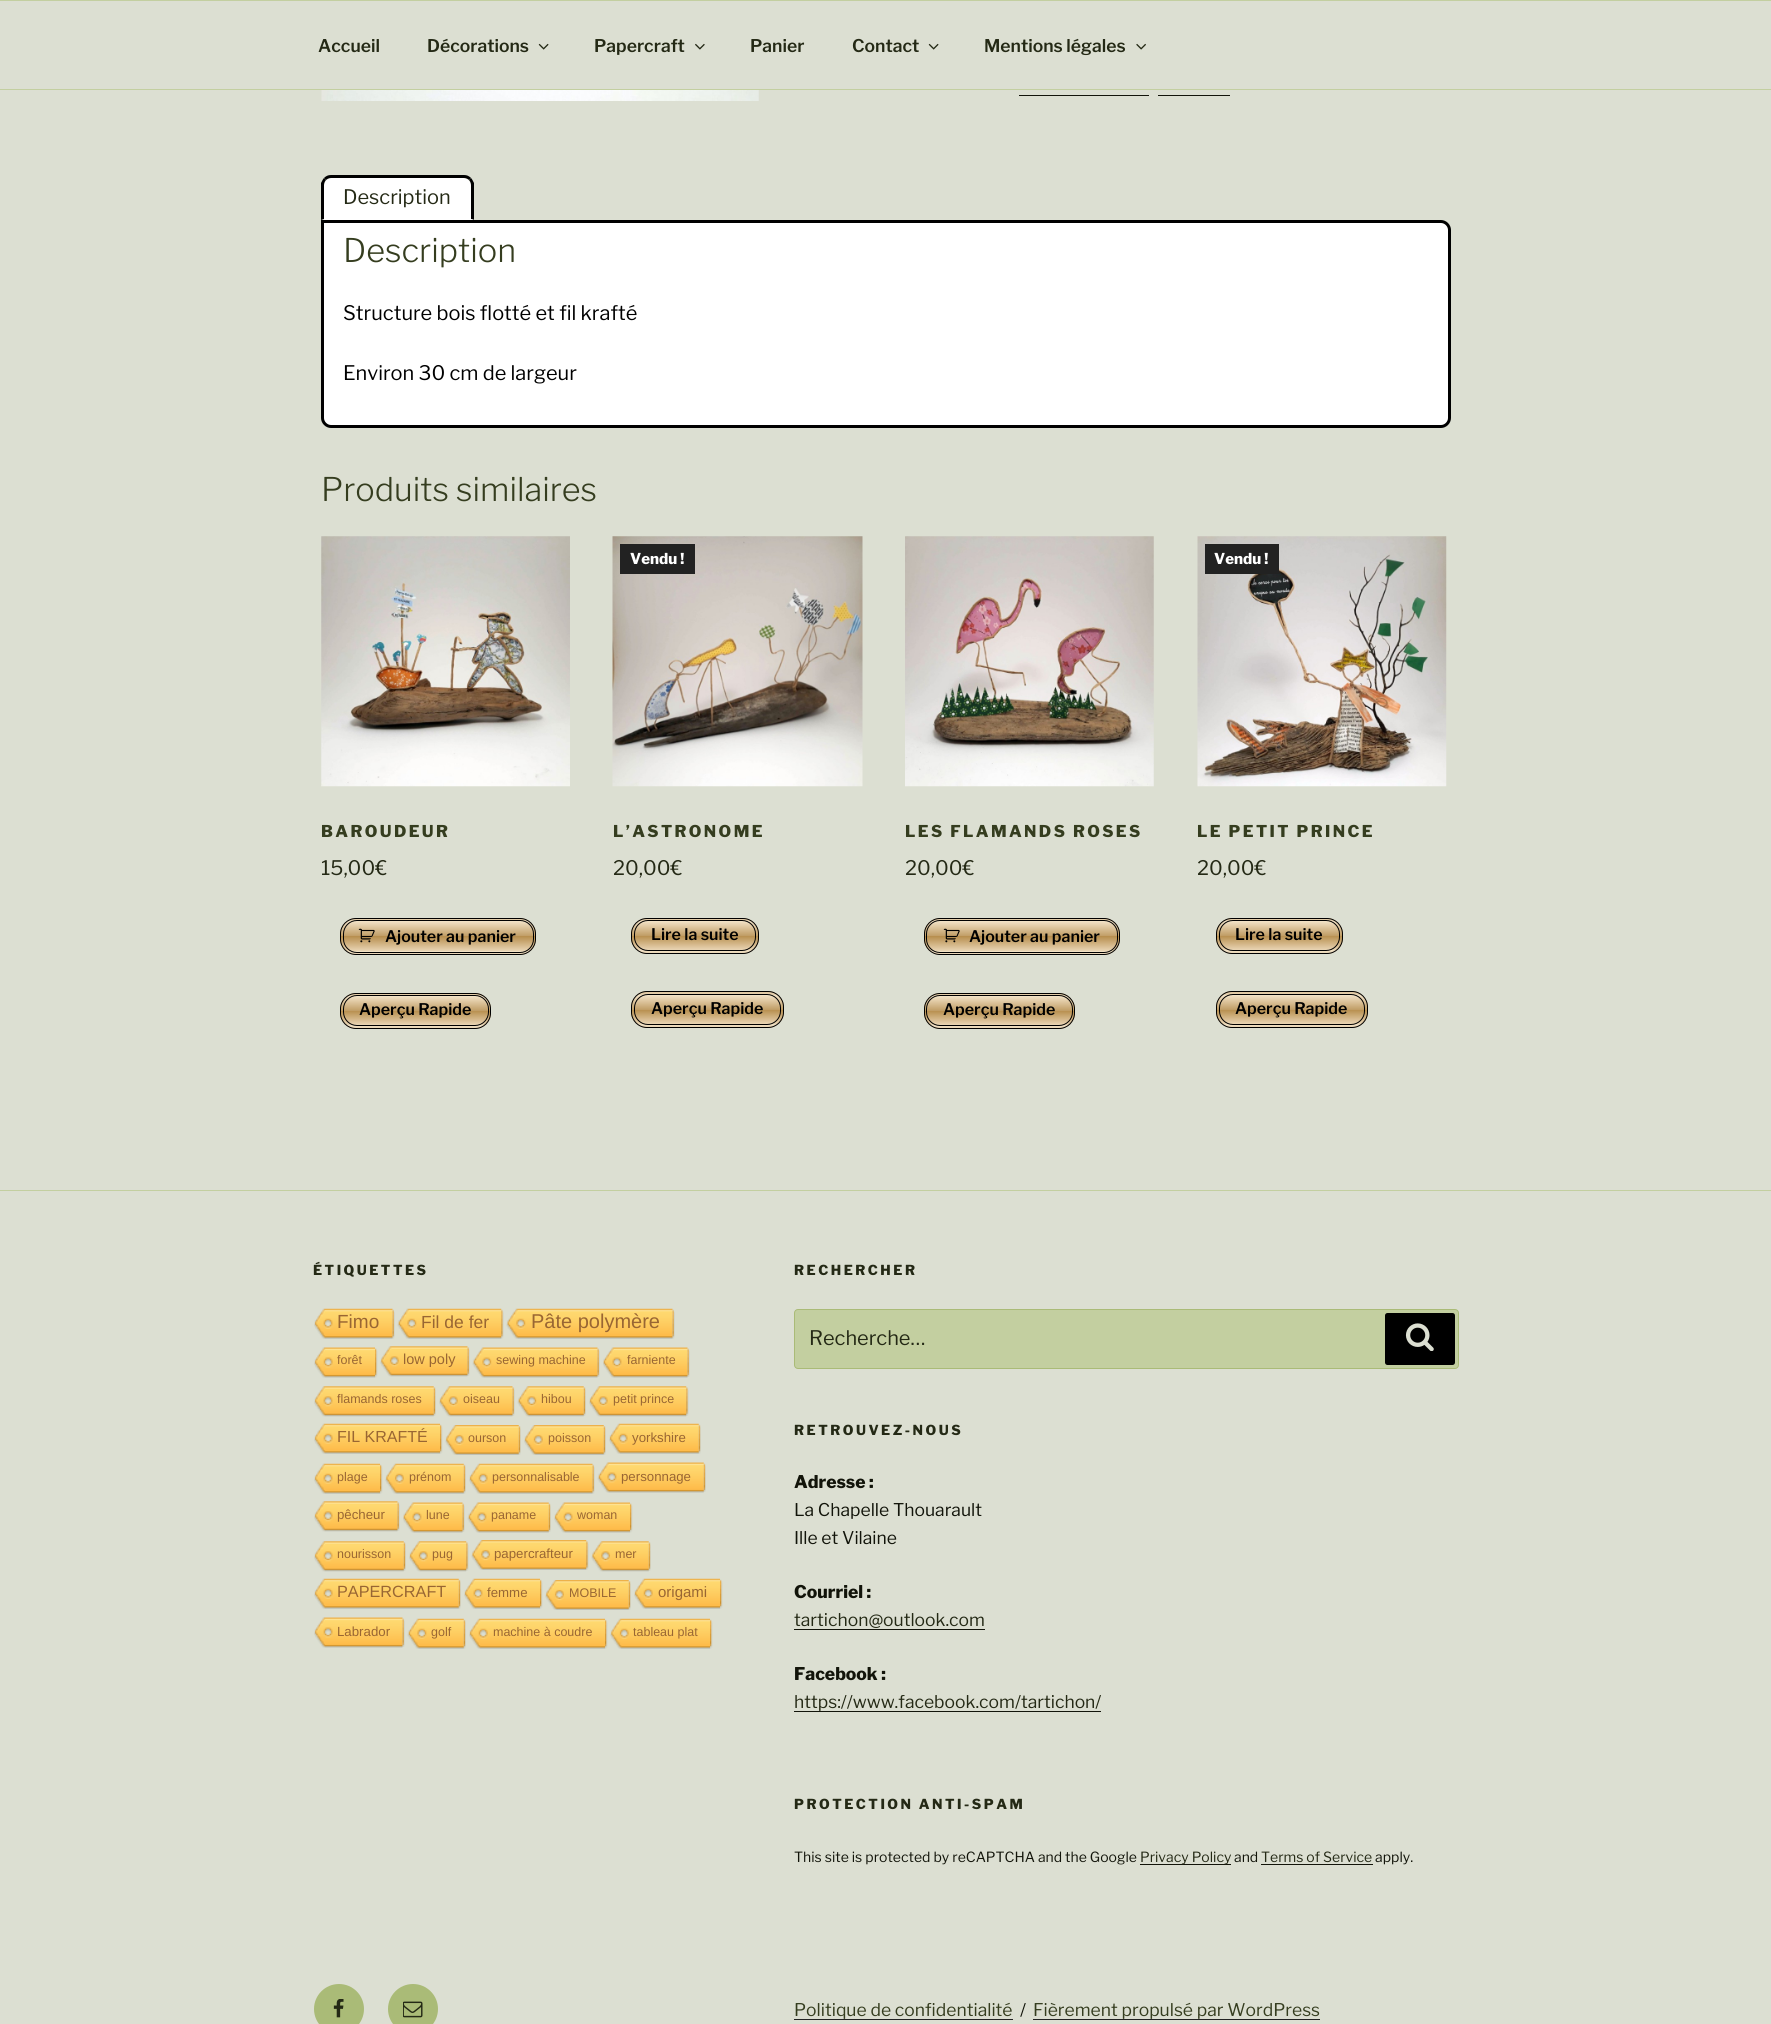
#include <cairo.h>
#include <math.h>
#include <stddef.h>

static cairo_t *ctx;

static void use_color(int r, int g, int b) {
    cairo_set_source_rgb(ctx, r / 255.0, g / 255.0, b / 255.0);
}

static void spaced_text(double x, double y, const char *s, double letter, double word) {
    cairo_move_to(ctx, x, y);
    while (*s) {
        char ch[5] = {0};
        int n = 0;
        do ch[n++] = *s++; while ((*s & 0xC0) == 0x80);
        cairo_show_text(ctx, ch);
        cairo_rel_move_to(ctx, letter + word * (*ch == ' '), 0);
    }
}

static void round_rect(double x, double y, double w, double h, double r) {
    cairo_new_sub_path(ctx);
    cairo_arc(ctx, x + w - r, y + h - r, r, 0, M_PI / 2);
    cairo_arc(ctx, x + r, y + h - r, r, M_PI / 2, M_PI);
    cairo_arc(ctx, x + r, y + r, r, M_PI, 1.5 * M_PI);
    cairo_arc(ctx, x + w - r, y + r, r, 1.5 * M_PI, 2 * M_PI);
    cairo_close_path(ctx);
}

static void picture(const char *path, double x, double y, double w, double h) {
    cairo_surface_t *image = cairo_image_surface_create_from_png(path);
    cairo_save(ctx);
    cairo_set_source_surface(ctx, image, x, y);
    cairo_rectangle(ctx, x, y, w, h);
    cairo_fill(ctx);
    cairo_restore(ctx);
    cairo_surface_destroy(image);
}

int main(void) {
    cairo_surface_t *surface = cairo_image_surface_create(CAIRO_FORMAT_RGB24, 1771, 2024);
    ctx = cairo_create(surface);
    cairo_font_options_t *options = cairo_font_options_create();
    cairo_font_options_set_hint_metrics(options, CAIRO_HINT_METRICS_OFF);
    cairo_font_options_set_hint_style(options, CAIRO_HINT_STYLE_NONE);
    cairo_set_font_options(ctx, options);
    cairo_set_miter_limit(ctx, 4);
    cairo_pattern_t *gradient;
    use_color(220, 223, 210);
    cairo_paint(ctx);
    use_color(195, 207, 160);
    cairo_rectangle(ctx, 0, 0, 1771, 1);
    cairo_fill(ctx);
    cairo_rectangle(ctx, 0, 89, 1771, 1);
    cairo_fill(ctx);
    cairo_select_font_face(ctx, "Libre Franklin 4 Thin", CAIRO_FONT_SLANT_NORMAL, CAIRO_FONT_WEIGHT_NORMAL);
    cairo_set_font_size(ctx, 17.5);
    use_color(36, 41, 21);
    cairo_move_to(ctx, 318, 52);
    cairo_show_text(ctx, "Accueil");
    cairo_move_to(ctx, 427, 52);
    cairo_show_text(ctx, "Décorations");
    picture("img1.png", 538, 43, 11, 7);
    cairo_move_to(ctx, 594, 52);
    cairo_show_text(ctx, "Papercraft");
    picture("img2.png", 695, 43, 10, 7);
    cairo_move_to(ctx, 750, 52);
    cairo_show_text(ctx, "Panier");
    cairo_move_to(ctx, 852, 52);
    cairo_show_text(ctx, "Contact");
    picture("img1.png", 928, 43, 11, 7);
    cairo_move_to(ctx, 984, 52);
    cairo_show_text(ctx, "Mentions légales");
    picture("img3.png", 1136, 43, 10, 7);
    picture("img4.png", 321, 90, 438, 11);
    use_color(18, 20, 10);
    cairo_rectangle(ctx, 1019, 95, 130, 1);
    cairo_fill(ctx);
    cairo_rectangle(ctx, 1158, 95, 72, 1);
    cairo_fill(ctx);
    use_color(255, 255, 255);
    cairo_new_path(ctx);
    cairo_move_to(ctx, 332, 178);
    cairo_line_to(ctx, 463, 178);
    cairo_curve_to(ctx, 467.5, 178, 471, 181.5, 471, 186);
    cairo_line_to(ctx, 471, 219);
    cairo_line_to(ctx, 324, 219);
    cairo_line_to(ctx, 324, 186);
    cairo_curve_to(ctx, 324, 181.5, 327.5, 178, 332, 178);
    cairo_close_path(ctx);
    cairo_fill(ctx);
    use_color(0, 0, 0);
    cairo_new_path(ctx);
    cairo_move_to(ctx, 331, 175);
    cairo_curve_to(ctx, 328, 175, 326, 176, 324, 178);
    cairo_line_to(ctx, 326, 180);
    cairo_curve_to(ctx, 327, 179, 329, 178, 331, 178);
    cairo_line_to(ctx, 464, 178);
    cairo_curve_to(ctx, 466, 178, 468, 179, 469, 180);
    cairo_line_to(ctx, 471, 178);
    cairo_curve_to(ctx, 469, 176, 467, 175, 464, 175);
    cairo_close_path(ctx);
    cairo_fill(ctx);
    cairo_new_path(ctx);
    cairo_move_to(ctx, 474, 183);
    cairo_line_to(ctx, 474, 220);
    cairo_line_to(ctx, 471, 219);
    cairo_line_to(ctx, 471, 185);
    cairo_curve_to(ctx, 471, 183, 470, 181, 469, 180);
    cairo_line_to(ctx, 471, 178);
    cairo_curve_to(ctx, 472, 179, 473, 181, 474, 183);
    cairo_close_path(ctx);
    cairo_fill(ctx);
    use_color(255, 255, 255);
    cairo_new_path(ctx);
    cairo_move_to(ctx, 474, 220);
    cairo_line_to(ctx, 471, 219);
    cairo_line_to(ctx, 324, 219);
    cairo_line_to(ctx, 321, 220);
    cairo_close_path(ctx);
    cairo_fill(ctx);
    use_color(0, 0, 0);
    cairo_new_path(ctx);
    cairo_move_to(ctx, 321, 220);
    cairo_line_to(ctx, 321, 183);
    cairo_curve_to(ctx, 322, 181, 323, 179, 324, 178);
    cairo_line_to(ctx, 326, 180);
    cairo_curve_to(ctx, 325, 181, 324, 183, 324, 185);
    cairo_line_to(ctx, 324, 219);
    cairo_close_path(ctx);
    cairo_fill(ctx);
    cairo_select_font_face(ctx, "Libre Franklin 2 Thin", CAIRO_FONT_SLANT_NORMAL, CAIRO_FONT_WEIGHT_NORMAL);
    cairo_set_font_size(ctx, 20);
    use_color(36, 41, 21);
    cairo_move_to(ctx, 343, 204);
    cairo_show_text(ctx, "Description");
    use_color(255, 255, 255);
    cairo_new_path(ctx);
    cairo_move_to(ctx, 322.5, 221.5);
    cairo_line_to(ctx, 1441, 221.5);
    cairo_curve_to(ctx, 1445.5, 221.5, 1449.5, 225.5, 1449.5, 230);
    cairo_line_to(ctx, 1449.5, 418);
    cairo_curve_to(ctx, 1449.5, 422.5, 1445.5, 426.5, 1441, 426.5);
    cairo_line_to(ctx, 331, 426.5);
    cairo_curve_to(ctx, 326.5, 426.5, 322.5, 422.5, 322.5, 418);
    cairo_close_path(ctx);
    cairo_fill_preserve(ctx);
    use_color(0, 0, 0);
    cairo_set_line_width(ctx, 3);
    cairo_stroke(ctx);
    cairo_select_font_face(ctx, "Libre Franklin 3 Thin", CAIRO_FONT_SLANT_NORMAL, CAIRO_FONT_WEIGHT_NORMAL);
    cairo_set_font_size(ctx, 32.5);
    use_color(53, 61, 31);
    cairo_move_to(ctx, 343, 262);
    cairo_show_text(ctx, "Description");
    cairo_select_font_face(ctx, "Libre Franklin 2 Thin", CAIRO_FONT_SLANT_NORMAL, CAIRO_FONT_WEIGHT_NORMAL);
    cairo_set_font_size(ctx, 20);
    use_color(0, 0, 0);
    cairo_move_to(ctx, 343, 320);
    cairo_show_text(ctx, "Structure bois flotté et fil krafté");
    cairo_move_to(ctx, 343, 380);
    cairo_show_text(ctx, "Environ 30 cm de largeur");
    cairo_select_font_face(ctx, "Libre Franklin 3 Thin", CAIRO_FONT_SLANT_NORMAL, CAIRO_FONT_WEIGHT_NORMAL);
    cairo_set_font_size(ctx, 32.5);
    use_color(53, 61, 31);
    cairo_move_to(ctx, 321, 501);
    cairo_show_text(ctx, "Produits similaires");
    picture("img5.png", 321, 536, 249, 251);
    cairo_select_font_face(ctx, "Libre Franklin Thin", CAIRO_FONT_SLANT_NORMAL, CAIRO_FONT_WEIGHT_NORMAL);
    cairo_set_font_size(ctx, 16.25);
    spaced_text(321, 837, "BAROUDEUR", 2.4, 0);
    cairo_select_font_face(ctx, "Libre Franklin 2 Thin", CAIRO_FONT_SLANT_NORMAL, CAIRO_FONT_WEIGHT_NORMAL);
    cairo_set_font_size(ctx, 20);
    use_color(36, 41, 21);
    cairo_move_to(ctx, 321, 875);
    cairo_show_text(ctx, "15,00€");
    cairo_save(ctx);
    round_rect(340, 918, 196, 37, 16);
    cairo_clip(ctx);
    gradient = cairo_pattern_create_linear(438, 891, 438, 921);
    cairo_pattern_add_color_stop_rgba(gradient, 0, 0.953, 0.89, 0.784, 1);
    cairo_pattern_add_color_stop_rgba(gradient, 0.5, 0.757, 0.62, 0.404, 1);
    cairo_pattern_add_color_stop_rgba(gradient, 0.51, 0.718, 0.557, 0.306, 1);
    cairo_pattern_add_color_stop_rgba(gradient, 1, 0.914, 0.835, 0.706, 1);
    cairo_set_source(ctx, gradient);
    cairo_pattern_destroy(gradient);
    cairo_rectangle(ctx, 340, 918, 196, 3);
    cairo_fill(ctx);
    gradient = cairo_pattern_create_linear(438, 921, 438, 951);
    cairo_pattern_add_color_stop_rgba(gradient, 0, 0.953, 0.89, 0.784, 1);
    cairo_pattern_add_color_stop_rgba(gradient, 0.5, 0.757, 0.62, 0.404, 1);
    cairo_pattern_add_color_stop_rgba(gradient, 0.51, 0.718, 0.557, 0.306, 1);
    cairo_pattern_add_color_stop_rgba(gradient, 1, 0.914, 0.835, 0.706, 1);
    cairo_set_source(ctx, gradient);
    cairo_pattern_destroy(gradient);
    cairo_rectangle(ctx, 340, 921, 196, 30);
    cairo_fill(ctx);
    gradient = cairo_pattern_create_linear(438, 951, 438, 981);
    cairo_pattern_add_color_stop_rgba(gradient, 0, 0.953, 0.89, 0.784, 1);
    cairo_pattern_add_color_stop_rgba(gradient, 0.5, 0.757, 0.62, 0.404, 1);
    cairo_pattern_add_color_stop_rgba(gradient, 0.51, 0.718, 0.557, 0.306, 1);
    cairo_pattern_add_color_stop_rgba(gradient, 1, 0.914, 0.835, 0.706, 1);
    cairo_set_source(ctx, gradient);
    cairo_pattern_destroy(gradient);
    cairo_rectangle(ctx, 340, 951, 196, 4);
    cairo_fill(ctx);
    cairo_restore(ctx);
    round_rect(340.5, 918.5, 195, 36, 15.5);
    use_color(0, 0, 0);
    cairo_set_line_width(ctx, 1);
    cairo_stroke(ctx);
    round_rect(343.5, 920.5, 190, 32, 13.5);
    cairo_stroke(ctx);
    picture("img6.png", 358, 928, 17, 15);
    cairo_select_font_face(ctx, "Libre Franklin 4 Thin", CAIRO_FONT_SLANT_NORMAL, CAIRO_FONT_WEIGHT_NORMAL);
    cairo_set_font_size(ctx, 16);
    cairo_move_to(ctx, 385, 942);
    cairo_show_text(ctx, "Ajouter au panier");
    cairo_save(ctx);
    round_rect(340, 993, 151, 36, 16);
    cairo_clip(ctx);
    gradient = cairo_pattern_create_linear(416, 968, 416, 996);
    cairo_pattern_add_color_stop_rgba(gradient, 0, 0.953, 0.89, 0.784, 1);
    cairo_pattern_add_color_stop_rgba(gradient, 0.5, 0.757, 0.62, 0.404, 1);
    cairo_pattern_add_color_stop_rgba(gradient, 0.51, 0.718, 0.557, 0.306, 1);
    cairo_pattern_add_color_stop_rgba(gradient, 1, 0.914, 0.835, 0.706, 1);
    cairo_set_source(ctx, gradient);
    cairo_pattern_destroy(gradient);
    cairo_rectangle(ctx, 340, 993, 151, 3);
    cairo_fill(ctx);
    gradient = cairo_pattern_create_linear(416, 996, 416, 1025);
    cairo_pattern_add_color_stop_rgba(gradient, 0, 0.953, 0.89, 0.784, 1);
    cairo_pattern_add_color_stop_rgba(gradient, 0.5, 0.757, 0.62, 0.404, 1);
    cairo_pattern_add_color_stop_rgba(gradient, 0.51, 0.718, 0.557, 0.306, 1);
    cairo_pattern_add_color_stop_rgba(gradient, 1, 0.914, 0.835, 0.706, 1);
    cairo_set_source(ctx, gradient);
    cairo_pattern_destroy(gradient);
    cairo_rectangle(ctx, 340, 996, 151, 29);
    cairo_fill(ctx);
    gradient = cairo_pattern_create_linear(416, 1025, 416, 1054);
    cairo_pattern_add_color_stop_rgba(gradient, 0, 0.953, 0.89, 0.784, 1);
    cairo_pattern_add_color_stop_rgba(gradient, 0.5, 0.757, 0.62, 0.404, 1);
    cairo_pattern_add_color_stop_rgba(gradient, 0.51, 0.718, 0.557, 0.306, 1);
    cairo_pattern_add_color_stop_rgba(gradient, 1, 0.914, 0.835, 0.706, 1);
    cairo_set_source(ctx, gradient);
    cairo_pattern_destroy(gradient);
    cairo_rectangle(ctx, 340, 1025, 151, 4);
    cairo_fill(ctx);
    cairo_restore(ctx);
    round_rect(340.5, 993.5, 150, 35, 15.5);
    cairo_stroke(ctx);
    round_rect(343.5, 995.5, 145, 30, 13.5);
    cairo_stroke(ctx);
    cairo_move_to(ctx, 359, 1015);
    cairo_show_text(ctx, "Aperçu Rapide");
    picture("img7.png", 612, 536, 251, 251);
    use_color(34, 34, 34);
    cairo_rectangle(ctx, 620, 544, 75, 30);
    cairo_fill(ctx);
    cairo_select_font_face(ctx, "Libre Franklin Thin", CAIRO_FONT_SLANT_NORMAL, CAIRO_FONT_WEIGHT_NORMAL);
    cairo_set_font_size(ctx, 15);
    use_color(255, 255, 255);
    cairo_move_to(ctx, 630, 564);
    cairo_show_text(ctx, "Vendu !");
    cairo_set_font_size(ctx, 16.25);
    use_color(53, 61, 31);
    spaced_text(613, 837, "L’ASTRONOME", 2.4, 0);
    cairo_select_font_face(ctx, "Libre Franklin 2 Thin", CAIRO_FONT_SLANT_NORMAL, CAIRO_FONT_WEIGHT_NORMAL);
    cairo_set_font_size(ctx, 20);
    use_color(36, 41, 21);
    cairo_move_to(ctx, 613, 875);
    cairo_show_text(ctx, "20,00€");
    cairo_save(ctx);
    round_rect(631, 918, 128, 36, 16);
    cairo_clip(ctx);
    gradient = cairo_pattern_create_linear(695, 893, 695, 921);
    cairo_pattern_add_color_stop_rgba(gradient, 0, 0.953, 0.89, 0.784, 1);
    cairo_pattern_add_color_stop_rgba(gradient, 0.5, 0.757, 0.62, 0.404, 1);
    cairo_pattern_add_color_stop_rgba(gradient, 0.51, 0.718, 0.557, 0.306, 1);
    cairo_pattern_add_color_stop_rgba(gradient, 1, 0.914, 0.835, 0.706, 1);
    cairo_set_source(ctx, gradient);
    cairo_pattern_destroy(gradient);
    cairo_rectangle(ctx, 631, 918, 128, 3);
    cairo_fill(ctx);
    gradient = cairo_pattern_create_linear(695, 921, 695, 950);
    cairo_pattern_add_color_stop_rgba(gradient, 0, 0.953, 0.89, 0.784, 1);
    cairo_pattern_add_color_stop_rgba(gradient, 0.5, 0.757, 0.62, 0.404, 1);
    cairo_pattern_add_color_stop_rgba(gradient, 0.51, 0.718, 0.557, 0.306, 1);
    cairo_pattern_add_color_stop_rgba(gradient, 1, 0.914, 0.835, 0.706, 1);
    cairo_set_source(ctx, gradient);
    cairo_pattern_destroy(gradient);
    cairo_rectangle(ctx, 631, 921, 128, 29);
    cairo_fill(ctx);
    gradient = cairo_pattern_create_linear(695, 950, 695, 979);
    cairo_pattern_add_color_stop_rgba(gradient, 0, 0.953, 0.89, 0.784, 1);
    cairo_pattern_add_color_stop_rgba(gradient, 0.5, 0.757, 0.62, 0.404, 1);
    cairo_pattern_add_color_stop_rgba(gradient, 0.51, 0.718, 0.557, 0.306, 1);
    cairo_pattern_add_color_stop_rgba(gradient, 1, 0.914, 0.835, 0.706, 1);
    cairo_set_source(ctx, gradient);
    cairo_pattern_destroy(gradient);
    cairo_rectangle(ctx, 631, 950, 128, 4);
    cairo_fill(ctx);
    cairo_restore(ctx);
    round_rect(631.5, 918.5, 127, 35, 15.5);
    use_color(0, 0, 0);
    cairo_stroke(ctx);
    round_rect(634.5, 920.5, 121, 30, 13.5);
    cairo_stroke(ctx);
    cairo_select_font_face(ctx, "Libre Franklin 4 Thin", CAIRO_FONT_SLANT_NORMAL, CAIRO_FONT_WEIGHT_NORMAL);
    cairo_set_font_size(ctx, 16);
    cairo_move_to(ctx, 651, 940);
    cairo_show_text(ctx, "Lire la suite");
    cairo_save(ctx);
    round_rect(631, 991, 153, 37, 16);
    cairo_clip(ctx);
    gradient = cairo_pattern_create_linear(708, 966, 708, 995);
    cairo_pattern_add_color_stop_rgba(gradient, 0, 0.953, 0.89, 0.784, 1);
    cairo_pattern_add_color_stop_rgba(gradient, 0.5, 0.757, 0.62, 0.404, 1);
    cairo_pattern_add_color_stop_rgba(gradient, 0.51, 0.718, 0.557, 0.306, 1);
    cairo_pattern_add_color_stop_rgba(gradient, 1, 0.914, 0.835, 0.706, 1);
    cairo_set_source(ctx, gradient);
    cairo_pattern_destroy(gradient);
    cairo_rectangle(ctx, 631, 991, 153, 4);
    cairo_fill(ctx);
    gradient = cairo_pattern_create_linear(708, 995, 708, 1024);
    cairo_pattern_add_color_stop_rgba(gradient, 0, 0.953, 0.89, 0.784, 1);
    cairo_pattern_add_color_stop_rgba(gradient, 0.5, 0.757, 0.62, 0.404, 1);
    cairo_pattern_add_color_stop_rgba(gradient, 0.51, 0.718, 0.557, 0.306, 1);
    cairo_pattern_add_color_stop_rgba(gradient, 1, 0.914, 0.835, 0.706, 1);
    cairo_set_source(ctx, gradient);
    cairo_pattern_destroy(gradient);
    cairo_rectangle(ctx, 631, 995, 153, 29);
    cairo_fill(ctx);
    gradient = cairo_pattern_create_linear(708, 1024, 708, 1053);
    cairo_pattern_add_color_stop_rgba(gradient, 0, 0.953, 0.89, 0.784, 1);
    cairo_pattern_add_color_stop_rgba(gradient, 0.5, 0.757, 0.62, 0.404, 1);
    cairo_pattern_add_color_stop_rgba(gradient, 0.51, 0.718, 0.557, 0.306, 1);
    cairo_pattern_add_color_stop_rgba(gradient, 1, 0.914, 0.835, 0.706, 1);
    cairo_set_source(ctx, gradient);
    cairo_pattern_destroy(gradient);
    cairo_rectangle(ctx, 631, 1024, 153, 4);
    cairo_fill(ctx);
    cairo_restore(ctx);
    round_rect(631.5, 991.5, 152, 36, 15.5);
    cairo_stroke(ctx);
    round_rect(634.5, 994.5, 146, 30, 13.5);
    cairo_stroke(ctx);
    cairo_move_to(ctx, 651, 1014);
    cairo_show_text(ctx, "Aperçu Rapide");
    picture("img8.png", 905, 536, 249, 251);
    cairo_select_font_face(ctx, "Libre Franklin Thin", CAIRO_FONT_SLANT_NORMAL, CAIRO_FONT_WEIGHT_NORMAL);
    cairo_set_font_size(ctx, 16.25);
    use_color(53, 61, 31);
    spaced_text(905, 837, "LES FLAMANDS ROSES", 2.4, 0);
    cairo_select_font_face(ctx, "Libre Franklin 2 Thin", CAIRO_FONT_SLANT_NORMAL, CAIRO_FONT_WEIGHT_NORMAL);
    cairo_set_font_size(ctx, 20);
    use_color(36, 41, 21);
    cairo_move_to(ctx, 905, 875);
    cairo_show_text(ctx, "20,00€");
    cairo_save(ctx);
    round_rect(924, 918, 196, 37, 16);
    cairo_clip(ctx);
    gradient = cairo_pattern_create_linear(1022, 891, 1022, 921);
    cairo_pattern_add_color_stop_rgba(gradient, 0, 0.953, 0.89, 0.784, 1);
    cairo_pattern_add_color_stop_rgba(gradient, 0.5, 0.757, 0.62, 0.404, 1);
    cairo_pattern_add_color_stop_rgba(gradient, 0.51, 0.718, 0.557, 0.306, 1);
    cairo_pattern_add_color_stop_rgba(gradient, 1, 0.914, 0.835, 0.706, 1);
    cairo_set_source(ctx, gradient);
    cairo_pattern_destroy(gradient);
    cairo_rectangle(ctx, 924, 918, 196, 3);
    cairo_fill(ctx);
    gradient = cairo_pattern_create_linear(1022, 921, 1022, 951);
    cairo_pattern_add_color_stop_rgba(gradient, 0, 0.953, 0.89, 0.784, 1);
    cairo_pattern_add_color_stop_rgba(gradient, 0.5, 0.757, 0.62, 0.404, 1);
    cairo_pattern_add_color_stop_rgba(gradient, 0.51, 0.718, 0.557, 0.306, 1);
    cairo_pattern_add_color_stop_rgba(gradient, 1, 0.914, 0.835, 0.706, 1);
    cairo_set_source(ctx, gradient);
    cairo_pattern_destroy(gradient);
    cairo_rectangle(ctx, 924, 921, 196, 30);
    cairo_fill(ctx);
    gradient = cairo_pattern_create_linear(1022, 951, 1022, 981);
    cairo_pattern_add_color_stop_rgba(gradient, 0, 0.953, 0.89, 0.784, 1);
    cairo_pattern_add_color_stop_rgba(gradient, 0.5, 0.757, 0.62, 0.404, 1);
    cairo_pattern_add_color_stop_rgba(gradient, 0.51, 0.718, 0.557, 0.306, 1);
    cairo_pattern_add_color_stop_rgba(gradient, 1, 0.914, 0.835, 0.706, 1);
    cairo_set_source(ctx, gradient);
    cairo_pattern_destroy(gradient);
    cairo_rectangle(ctx, 924, 951, 196, 4);
    cairo_fill(ctx);
    cairo_restore(ctx);
    round_rect(924.5, 918.5, 195, 36, 15.5);
    use_color(0, 0, 0);
    cairo_stroke(ctx);
    round_rect(926.5, 920.5, 191, 32, 13.5);
    cairo_stroke(ctx);
    picture("img6.png", 943, 928, 17, 15);
    cairo_select_font_face(ctx, "Libre Franklin 4 Thin", CAIRO_FONT_SLANT_NORMAL, CAIRO_FONT_WEIGHT_NORMAL);
    cairo_set_font_size(ctx, 16);
    cairo_move_to(ctx, 969, 942);
    cairo_show_text(ctx, "Ajouter au panier");
    cairo_save(ctx);
    round_rect(924, 993, 151, 36, 16);
    cairo_clip(ctx);
    gradient = cairo_pattern_create_linear(999, 968, 999, 996);
    cairo_pattern_add_color_stop_rgba(gradient, 0, 0.953, 0.89, 0.784, 1);
    cairo_pattern_add_color_stop_rgba(gradient, 0.5, 0.757, 0.62, 0.404, 1);
    cairo_pattern_add_color_stop_rgba(gradient, 0.51, 0.718, 0.557, 0.306, 1);
    cairo_pattern_add_color_stop_rgba(gradient, 1, 0.914, 0.835, 0.706, 1);
    cairo_set_source(ctx, gradient);
    cairo_pattern_destroy(gradient);
    cairo_rectangle(ctx, 924, 993, 151, 3);
    cairo_fill(ctx);
    gradient = cairo_pattern_create_linear(999, 996, 999, 1025);
    cairo_pattern_add_color_stop_rgba(gradient, 0, 0.953, 0.89, 0.784, 1);
    cairo_pattern_add_color_stop_rgba(gradient, 0.5, 0.757, 0.62, 0.404, 1);
    cairo_pattern_add_color_stop_rgba(gradient, 0.51, 0.718, 0.557, 0.306, 1);
    cairo_pattern_add_color_stop_rgba(gradient, 1, 0.914, 0.835, 0.706, 1);
    cairo_set_source(ctx, gradient);
    cairo_pattern_destroy(gradient);
    cairo_rectangle(ctx, 924, 996, 151, 29);
    cairo_fill(ctx);
    gradient = cairo_pattern_create_linear(999, 1025, 999, 1054);
    cairo_pattern_add_color_stop_rgba(gradient, 0, 0.953, 0.89, 0.784, 1);
    cairo_pattern_add_color_stop_rgba(gradient, 0.5, 0.757, 0.62, 0.404, 1);
    cairo_pattern_add_color_stop_rgba(gradient, 0.51, 0.718, 0.557, 0.306, 1);
    cairo_pattern_add_color_stop_rgba(gradient, 1, 0.914, 0.835, 0.706, 1);
    cairo_set_source(ctx, gradient);
    cairo_pattern_destroy(gradient);
    cairo_rectangle(ctx, 924, 1025, 151, 4);
    cairo_fill(ctx);
    cairo_restore(ctx);
    round_rect(924.5, 993.5, 150, 35, 15.5);
    cairo_stroke(ctx);
    round_rect(926.5, 995.5, 146, 30, 13.5);
    cairo_stroke(ctx);
    cairo_move_to(ctx, 943, 1015);
    cairo_show_text(ctx, "Aperçu Rapide");
    picture("img9.png", 1197, 536, 250, 251);
    use_color(34, 34, 34);
    cairo_rectangle(ctx, 1205, 544, 74, 30);
    cairo_fill(ctx);
    cairo_select_font_face(ctx, "Libre Franklin Thin", CAIRO_FONT_SLANT_NORMAL, CAIRO_FONT_WEIGHT_NORMAL);
    cairo_set_font_size(ctx, 15);
    use_color(255, 255, 255);
    cairo_move_to(ctx, 1214, 564);
    cairo_show_text(ctx, "Vendu !");
    cairo_set_font_size(ctx, 16.25);
    use_color(53, 61, 31);
    spaced_text(1197, 837, "LE PETIT PRINCE", 2.4, 0);
    cairo_select_font_face(ctx, "Libre Franklin 2 Thin", CAIRO_FONT_SLANT_NORMAL, CAIRO_FONT_WEIGHT_NORMAL);
    cairo_set_font_size(ctx, 20);
    use_color(36, 41, 21);
    cairo_move_to(ctx, 1197, 875);
    cairo_show_text(ctx, "20,00€");
    cairo_save(ctx);
    round_rect(1216, 918, 127, 36, 16);
    cairo_clip(ctx);
    gradient = cairo_pattern_create_linear(1279, 893, 1279, 921);
    cairo_pattern_add_color_stop_rgba(gradient, 0, 0.953, 0.89, 0.784, 1);
    cairo_pattern_add_color_stop_rgba(gradient, 0.5, 0.757, 0.62, 0.404, 1);
    cairo_pattern_add_color_stop_rgba(gradient, 0.51, 0.718, 0.557, 0.306, 1);
    cairo_pattern_add_color_stop_rgba(gradient, 1, 0.914, 0.835, 0.706, 1);
    cairo_set_source(ctx, gradient);
    cairo_pattern_destroy(gradient);
    cairo_rectangle(ctx, 1216, 918, 127, 3);
    cairo_fill(ctx);
    gradient = cairo_pattern_create_linear(1279, 921, 1279, 950);
    cairo_pattern_add_color_stop_rgba(gradient, 0, 0.953, 0.89, 0.784, 1);
    cairo_pattern_add_color_stop_rgba(gradient, 0.5, 0.757, 0.62, 0.404, 1);
    cairo_pattern_add_color_stop_rgba(gradient, 0.51, 0.718, 0.557, 0.306, 1);
    cairo_pattern_add_color_stop_rgba(gradient, 1, 0.914, 0.835, 0.706, 1);
    cairo_set_source(ctx, gradient);
    cairo_pattern_destroy(gradient);
    cairo_rectangle(ctx, 1216, 921, 127, 29);
    cairo_fill(ctx);
    gradient = cairo_pattern_create_linear(1279, 950, 1279, 979);
    cairo_pattern_add_color_stop_rgba(gradient, 0, 0.953, 0.89, 0.784, 1);
    cairo_pattern_add_color_stop_rgba(gradient, 0.5, 0.757, 0.62, 0.404, 1);
    cairo_pattern_add_color_stop_rgba(gradient, 0.51, 0.718, 0.557, 0.306, 1);
    cairo_pattern_add_color_stop_rgba(gradient, 1, 0.914, 0.835, 0.706, 1);
    cairo_set_source(ctx, gradient);
    cairo_pattern_destroy(gradient);
    cairo_rectangle(ctx, 1216, 950, 127, 4);
    cairo_fill(ctx);
    cairo_restore(ctx);
    round_rect(1216.5, 918.5, 126, 35, 15.5);
    use_color(0, 0, 0);
    cairo_stroke(ctx);
    round_rect(1219.5, 920.5, 120, 30, 13.5);
    cairo_stroke(ctx);
    cairo_select_font_face(ctx, "Libre Franklin 4 Thin", CAIRO_FONT_SLANT_NORMAL, CAIRO_FONT_WEIGHT_NORMAL);
    cairo_set_font_size(ctx, 16);
    cairo_move_to(ctx, 1235, 940);
    cairo_show_text(ctx, "Lire la suite");
    cairo_save(ctx);
    round_rect(1216, 991, 152, 37, 16);
    cairo_clip(ctx);
    gradient = cairo_pattern_create_linear(1292, 966, 1292, 995);
    cairo_pattern_add_color_stop_rgba(gradient, 0, 0.953, 0.89, 0.784, 1);
    cairo_pattern_add_color_stop_rgba(gradient, 0.5, 0.757, 0.62, 0.404, 1);
    cairo_pattern_add_color_stop_rgba(gradient, 0.51, 0.718, 0.557, 0.306, 1);
    cairo_pattern_add_color_stop_rgba(gradient, 1, 0.914, 0.835, 0.706, 1);
    cairo_set_source(ctx, gradient);
    cairo_pattern_destroy(gradient);
    cairo_rectangle(ctx, 1216, 991, 152, 4);
    cairo_fill(ctx);
    gradient = cairo_pattern_create_linear(1292, 995, 1292, 1024);
    cairo_pattern_add_color_stop_rgba(gradient, 0, 0.953, 0.89, 0.784, 1);
    cairo_pattern_add_color_stop_rgba(gradient, 0.5, 0.757, 0.62, 0.404, 1);
    cairo_pattern_add_color_stop_rgba(gradient, 0.51, 0.718, 0.557, 0.306, 1);
    cairo_pattern_add_color_stop_rgba(gradient, 1, 0.914, 0.835, 0.706, 1);
    cairo_set_source(ctx, gradient);
    cairo_pattern_destroy(gradient);
    cairo_rectangle(ctx, 1216, 995, 152, 29);
    cairo_fill(ctx);
    gradient = cairo_pattern_create_linear(1292, 1024, 1292, 1053);
    cairo_pattern_add_color_stop_rgba(gradient, 0, 0.953, 0.89, 0.784, 1);
    cairo_pattern_add_color_stop_rgba(gradient, 0.5, 0.757, 0.62, 0.404, 1);
    cairo_pattern_add_color_stop_rgba(gradient, 0.51, 0.718, 0.557, 0.306, 1);
    cairo_pattern_add_color_stop_rgba(gradient, 1, 0.914, 0.835, 0.706, 1);
    cairo_set_source(ctx, gradient);
    cairo_pattern_destroy(gradient);
    cairo_rectangle(ctx, 1216, 1024, 152, 4);
    cairo_fill(ctx);
    cairo_restore(ctx);
    round_rect(1216.5, 991.5, 151, 36, 15.5);
    cairo_stroke(ctx);
    round_rect(1219.5, 994.5, 145, 30, 13.5);
    cairo_stroke(ctx);
    cairo_move_to(ctx, 1235, 1014);
    cairo_show_text(ctx, "Aperçu Rapide");
    use_color(195, 207, 160);
    cairo_rectangle(ctx, 0, 1190, 1771, 1);
    cairo_fill(ctx);
    cairo_select_font_face(ctx, "Libre Franklin Thin", CAIRO_FONT_SLANT_NORMAL, CAIRO_FONT_WEIGHT_NORMAL);
    cairo_set_font_size(ctx, 13.75);
    use_color(36, 41, 21);
    spaced_text(313, 1275, "ÉTIQUETTES", 2.5, 0);
    picture("img10.png", 314, 1308, 79, 31);
    cairo_select_font_face(ctx, "Liberation Sans", CAIRO_FONT_SLANT_NORMAL, CAIRO_FONT_WEIGHT_NORMAL);
    cairo_set_font_size(ctx, 19);
    use_color(153, 102, 51);
    cairo_move_to(ctx, 337, 1328);
    cairo_show_text(ctx, "Fimo");
    picture("img11.png", 392, 1309, 3, 30);
    picture("img12.png", 397, 1308, 105, 31);
    cairo_set_font_size(ctx, 17.5);
    cairo_move_to(ctx, 421, 1328);
    cairo_show_text(ctx, "Fil de fer");
    picture("img13.png", 501, 1309, 3, 30);
    picture("img14.png", 506, 1308, 167, 31);
    cairo_set_font_size(ctx, 20);
    cairo_move_to(ctx, 531, 1328);
    cairo_show_text(ctx, "Pâte polymère");
    picture("img11.png", 672, 1309, 3, 30);
    picture("img15.png", 314, 1347, 61, 31);
    cairo_set_font_size(ctx, 12.5);
    cairo_move_to(ctx, 337, 1364);
    cairo_show_text(ctx, "forêt");
    picture("img16.png", 375, 1348, 3, 30);
    picture("img17.png", 380, 1346, 88, 31);
    cairo_set_font_size(ctx, 14.5);
    cairo_move_to(ctx, 403, 1364);
    cairo_show_text(ctx, "low poly");
    picture("img18.png", 467, 1347, 3, 29);
    picture("img19.png", 472, 1347, 126, 31);
    cairo_set_font_size(ctx, 12.5);
    cairo_move_to(ctx, 496, 1364);
    cairo_show_text(ctx, "sewing machine");
    picture("img20.png", 597, 1348, 3, 29);
    picture("img21.png", 603, 1347, 85, 31);
    cairo_move_to(ctx, 627, 1364);
    cairo_show_text(ctx, "farniente");
    picture("img20.png", 687, 1348, 3, 29);
    picture("img22.png", 314, 1386, 120, 31);
    cairo_move_to(ctx, 337, 1403);
    cairo_show_text(ctx, "flamands roses");
    picture("img23.png", 433, 1387, 3, 29);
    picture("img24.png", 439, 1386, 74, 31);
    cairo_move_to(ctx, 463, 1403);
    cairo_show_text(ctx, "oiseau");
    picture("img18.png", 512, 1387, 3, 29);
    picture("img25.png", 517, 1386, 67, 31);
    cairo_move_to(ctx, 541, 1403);
    cairo_show_text(ctx, "hibou");
    picture("img23.png", 583, 1387, 3, 29);
    picture("img26.png", 589, 1386, 98, 31);
    cairo_move_to(ctx, 613, 1403);
    cairo_show_text(ctx, "petit prince");
    picture("img27.png", 686, 1387, 3, 29);
    picture("img28.png", 314, 1423, 126, 31);
    cairo_set_font_size(ctx, 16);
    cairo_move_to(ctx, 337, 1442);
    cairo_show_text(ctx, "FIL KRAFTÉ");
    picture("img29.png", 440, 1424, 3, 30);
    picture("img30.png", 445, 1425, 74, 30);
    cairo_set_font_size(ctx, 12.5);
    cairo_move_to(ctx, 468, 1442);
    cairo_show_text(ctx, "ourson");
    picture("img31.png", 518, 1426, 3, 29);
    picture("img32.png", 524, 1425, 80, 30);
    cairo_move_to(ctx, 548, 1442);
    cairo_show_text(ctx, "poisson");
    picture("img31.png", 603, 1426, 3, 29);
    picture("img33.png", 609, 1423, 90, 31);
    cairo_set_font_size(ctx, 13.25);
    cairo_move_to(ctx, 632, 1442);
    cairo_show_text(ctx, "yorkshire");
    picture("img34.png", 698, 1424, 3, 30);
    picture("img35.png", 314, 1463, 66, 31);
    cairo_set_font_size(ctx, 12.5);
    cairo_move_to(ctx, 337, 1481);
    cairo_show_text(ctx, "plage");
    picture("img29.png", 380, 1464, 3, 30);
    picture("img36.png", 385, 1463, 79, 31);
    cairo_move_to(ctx, 409, 1481);
    cairo_show_text(ctx, "prénom");
    picture("img34.png", 463, 1464, 3, 30);
    picture("img37.png", 469, 1463, 124, 31);
    cairo_move_to(ctx, 492, 1481);
    cairo_show_text(ctx, "personnalisable");
    picture("img11.png", 592, 1464, 3, 30);
    picture("img38.png", 597, 1462, 107, 31);
    cairo_set_font_size(ctx, 13.25);
    cairo_move_to(ctx, 621, 1481);
    cairo_show_text(ctx, "personnage");
    picture("img39.png", 703, 1463, 3, 29);
    picture("img40.png", 314, 1501, 84, 31);
    cairo_move_to(ctx, 337, 1519);
    cairo_show_text(ctx, "pêcheur");
    picture("img18.png", 397, 1502, 3, 29);
    picture("img41.png", 403, 1502, 60, 31);
    cairo_set_font_size(ctx, 12.5);
    cairo_move_to(ctx, 426, 1519);
    cairo_show_text(ctx, "lune");
    picture("img20.png", 462, 1503, 3, 29);
    picture("img42.png", 467, 1502, 82, 31);
    cairo_move_to(ctx, 491, 1519);
    cairo_show_text(ctx, "paname");
    picture("img39.png", 548, 1503, 3, 29);
    picture("img43.png", 554, 1502, 76, 31);
    cairo_move_to(ctx, 577, 1519);
    cairo_show_text(ctx, "woman");
    picture("img16.png", 630, 1503, 3, 30);
    picture("img44.png", 314, 1541, 90, 31);
    cairo_move_to(ctx, 337, 1558);
    cairo_show_text(ctx, "nourisson");
    picture("img45.png", 403, 1542, 3, 29);
    picture("img46.png", 409, 1541, 58, 31);
    cairo_move_to(ctx, 432, 1558);
    cairo_show_text(ctx, "pug");
    picture("img47.png", 466, 1542, 3, 29);
    picture("img48.png", 471, 1540, 116, 30);
    cairo_set_font_size(ctx, 13.25);
    cairo_move_to(ctx, 494, 1558);
    cairo_show_text(ctx, "papercrafteur");
    picture("img49.png", 586, 1541, 3, 29);
    picture("img50.png", 591, 1541, 58, 31);
    cairo_set_font_size(ctx, 12.5);
    cairo_move_to(ctx, 615, 1558);
    cairo_show_text(ctx, "mer");
    picture("img45.png", 648, 1542, 3, 29);
    picture("img51.png", 314, 1578, 145, 31);
    cairo_set_font_size(ctx, 16.25);
    cairo_move_to(ctx, 337, 1597);
    cairo_show_text(ctx, "PAPERCRAFT");
    picture("img34.png", 458, 1579, 3, 30);
    picture("img52.png", 464, 1578, 76, 31);
    cairo_set_font_size(ctx, 13.25);
    cairo_move_to(ctx, 487, 1597);
    cairo_show_text(ctx, "femme");
    picture("img29.png", 540, 1579, 3, 30);
    picture("img53.png", 545, 1580, 84, 30);
    cairo_set_font_size(ctx, 12.5);
    cairo_move_to(ctx, 569, 1597);
    cairo_show_text(ctx, "MOBILE");
    picture("img31.png", 628, 1581, 3, 29);
    picture("img54.png", 634, 1578, 86, 31);
    cairo_set_font_size(ctx, 15);
    cairo_move_to(ctx, 658, 1597);
    cairo_show_text(ctx, "origami");
    picture("img29.png", 720, 1579, 3, 30);
    picture("img55.png", 314, 1617, 89, 31);
    cairo_set_font_size(ctx, 13.25);
    cairo_move_to(ctx, 337, 1636);
    cairo_show_text(ctx, "Labrador");
    picture("img20.png", 402, 1618, 3, 29);
    picture("img56.png", 407, 1618, 57, 31);
    cairo_set_font_size(ctx, 12.5);
    cairo_move_to(ctx, 431, 1636);
    cairo_show_text(ctx, "golf");
    picture("img34.png", 463, 1619, 3, 30);
    picture("img57.png", 469, 1618, 136, 31);
    cairo_move_to(ctx, 493, 1636);
    cairo_show_text(ctx, "machine à coudre");
    picture("img29.png", 605, 1619, 3, 30);
    picture("img58.png", 610, 1618, 100, 31);
    cairo_move_to(ctx, 633, 1636);
    cairo_show_text(ctx, "tableau plat");
    picture("img29.png", 710, 1619, 3, 30);
    cairo_select_font_face(ctx, "Libre Franklin Thin", CAIRO_FONT_SLANT_NORMAL, CAIRO_FONT_WEIGHT_NORMAL);
    cairo_set_font_size(ctx, 13.75);
    use_color(36, 41, 21);
    spaced_text(794, 1275, "RECHERCHER", 2.5, 0);
    use_color(195, 207, 160);
    round_rect(794.5, 1309.5, 664, 59, 3.5);
    cairo_fill_preserve(ctx);
    use_color(170, 187, 119);
    cairo_stroke(ctx);
    cairo_select_font_face(ctx, "Libre Franklin 2 Thin", CAIRO_FONT_SLANT_NORMAL, CAIRO_FONT_WEIGHT_NORMAL);
    cairo_set_font_size(ctx, 20);
    use_color(36, 41, 21);
    cairo_move_to(ctx, 809, 1345);
    cairo_show_text(ctx, "Recherche…");
    use_color(0, 0, 0);
    round_rect(1385, 1313, 70, 52, 2.5);
    cairo_fill(ctx);
    picture("img59.png", 1405, 1323, 29, 28);
    cairo_select_font_face(ctx, "Libre Franklin Thin", CAIRO_FONT_SLANT_NORMAL, CAIRO_FONT_WEIGHT_NORMAL);
    cairo_set_font_size(ctx, 13.75);
    use_color(36, 41, 21);
    spaced_text(794, 1435, "RETROUVEZ-NOUS", 2.5, 0);
    cairo_set_font_size(ctx, 17.5);
    use_color(18, 20, 10);
    cairo_move_to(ctx, 794, 1488);
    cairo_show_text(ctx, "Adresse :");
    cairo_select_font_face(ctx, "Libre Franklin 2 Thin", CAIRO_FONT_SLANT_NORMAL, CAIRO_FONT_WEIGHT_NORMAL);
    cairo_move_to(ctx, 794, 1516);
    cairo_show_text(ctx, "La Chapelle Thouarault");
    cairo_move_to(ctx, 794, 1544);
    cairo_show_text(ctx, "Ille et Vilaine");
    cairo_select_font_face(ctx, "Libre Franklin Thin", CAIRO_FONT_SLANT_NORMAL, CAIRO_FONT_WEIGHT_NORMAL);
    cairo_move_to(ctx, 794, 1598);
    cairo_show_text(ctx, "Courriel :");
    cairo_select_font_face(ctx, "Libre Franklin 2 Thin", CAIRO_FONT_SLANT_NORMAL, CAIRO_FONT_WEIGHT_NORMAL);
    use_color(36, 41, 21);
    cairo_move_to(ctx, 794, 1626);
    cairo_show_text(ctx, "tartichon@outlook.com");
    use_color(18, 20, 10);
    cairo_rectangle(ctx, 794, 1629, 191, 1);
    cairo_fill(ctx);
    cairo_select_font_face(ctx, "Libre Franklin Thin", CAIRO_FONT_SLANT_NORMAL, CAIRO_FONT_WEIGHT_NORMAL);
    cairo_move_to(ctx, 794, 1680);
    cairo_show_text(ctx, "Facebook :");
    cairo_select_font_face(ctx, "Libre Franklin 2 Thin", CAIRO_FONT_SLANT_NORMAL, CAIRO_FONT_WEIGHT_NORMAL);
    use_color(36, 41, 21);
    cairo_move_to(ctx, 794, 1708);
    cairo_show_text(ctx, "https://www.facebook.com/tartichon/");
    use_color(18, 20, 10);
    cairo_rectangle(ctx, 794, 1711, 307, 1);
    cairo_fill(ctx);
    cairo_select_font_face(ctx, "Libre Franklin Thin", CAIRO_FONT_SLANT_NORMAL, CAIRO_FONT_WEIGHT_NORMAL);
    cairo_set_font_size(ctx, 13.75);
    use_color(36, 41, 21);
    spaced_text(794, 1809, "PROTECTION ANTI-SPAM", 2.5, 0);
    cairo_select_font_face(ctx, "Libre Franklin 2 Thin", CAIRO_FONT_SLANT_NORMAL, CAIRO_FONT_WEIGHT_NORMAL);
    cairo_set_font_size(ctx, 14);
    use_color(18, 20, 10);
    cairo_move_to(ctx, 794, 1862);
    cairo_show_text(ctx, "This site is protected by reCAPTCHA and the Google");
    cairo_rectangle(ctx, 1140, 1864, 91, 1);
    cairo_fill(ctx);
    use_color(36, 41, 21);
    cairo_move_to(ctx, 1140, 1862);
    cairo_show_text(ctx, "Privacy Policy");
    use_color(18, 20, 10);
    cairo_move_to(ctx, 1234, 1862);
    cairo_show_text(ctx, "and");
    use_color(36, 41, 21);
    cairo_move_to(ctx, 1261, 1862);
    cairo_show_text(ctx, "Terms of Service");
    use_color(18, 20, 10);
    cairo_rectangle(ctx, 1261, 1864, 112, 1);
    cairo_fill(ctx);
    cairo_move_to(ctx, 1375, 1862);
    cairo_show_text(ctx, "apply.");
    use_color(170, 187, 119);
    cairo_new_path(ctx);
    cairo_arc(ctx, 339, 2009, 25, 0, 2 * M_PI);
    cairo_fill(ctx);
    picture("img60.png", 333, 1999, 11, 19);
    cairo_arc(ctx, 413, 2009, 25, 0, 2 * M_PI);
    cairo_fill(ctx);
    picture("img61.png", 403, 2001, 20, 17);
    cairo_set_font_size(ctx, 17.5);
    use_color(53, 61, 31);
    cairo_move_to(ctx, 794, 2016);
    cairo_show_text(ctx, "Politique de confidentialité");
    use_color(34, 34, 34);
    cairo_rectangle(ctx, 794, 2019, 219, 1);
    cairo_fill(ctx);
    use_color(18, 20, 10);
    cairo_move_to(ctx, 1020, 2016);
    cairo_show_text(ctx, "/");
    use_color(53, 61, 31);
    cairo_move_to(ctx, 1033, 2016);
    cairo_show_text(ctx, "Fièrement propulsé par WordPress");
    use_color(34, 34, 34);
    cairo_rectangle(ctx, 1033, 2019, 287, 1);
    cairo_fill(ctx);
    cairo_surface_write_to_png(surface, "result.png");
    cairo_font_options_destroy(options);
    cairo_destroy(ctx);
    cairo_surface_destroy(surface);
    return 0;
}
